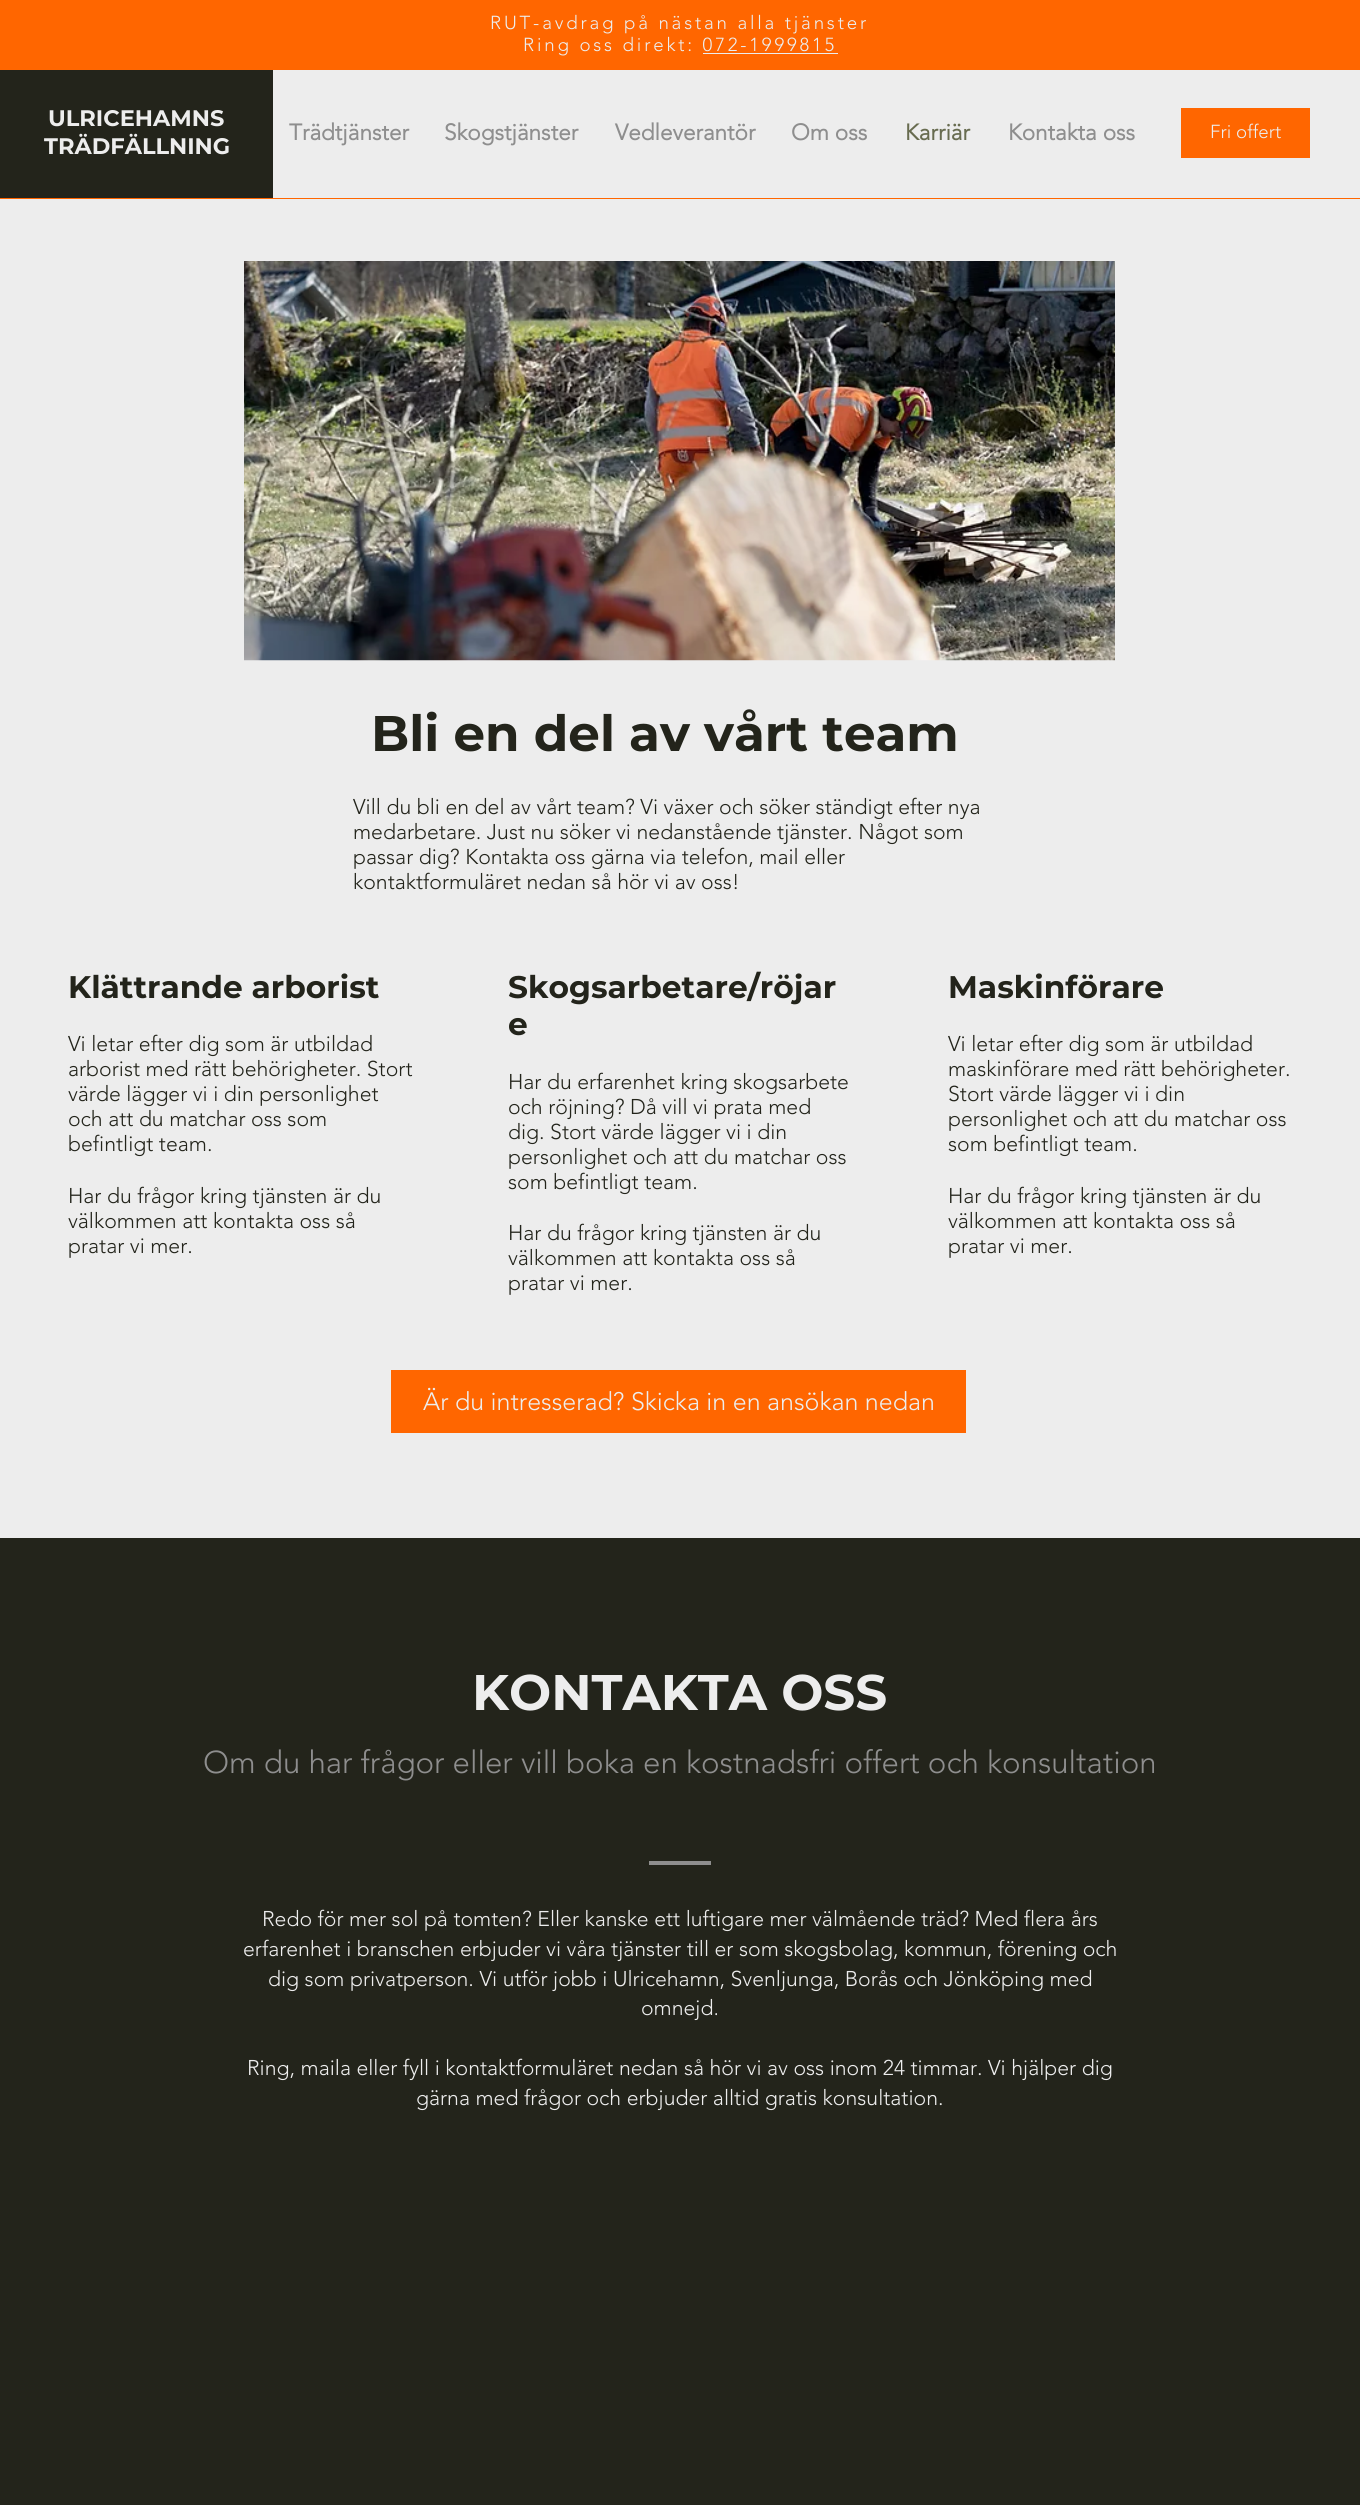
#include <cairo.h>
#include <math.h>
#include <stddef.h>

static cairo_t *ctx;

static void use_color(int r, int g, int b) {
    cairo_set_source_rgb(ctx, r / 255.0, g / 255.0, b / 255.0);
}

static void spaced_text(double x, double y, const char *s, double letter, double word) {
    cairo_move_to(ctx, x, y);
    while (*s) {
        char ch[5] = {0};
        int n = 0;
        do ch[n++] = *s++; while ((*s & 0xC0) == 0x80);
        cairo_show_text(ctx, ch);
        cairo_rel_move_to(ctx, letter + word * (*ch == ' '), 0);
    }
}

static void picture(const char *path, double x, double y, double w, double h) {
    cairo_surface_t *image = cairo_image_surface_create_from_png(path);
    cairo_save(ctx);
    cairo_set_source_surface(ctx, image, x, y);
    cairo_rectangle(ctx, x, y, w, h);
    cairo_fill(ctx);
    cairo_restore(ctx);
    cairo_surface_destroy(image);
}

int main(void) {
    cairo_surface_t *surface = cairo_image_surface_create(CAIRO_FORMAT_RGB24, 1360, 2505);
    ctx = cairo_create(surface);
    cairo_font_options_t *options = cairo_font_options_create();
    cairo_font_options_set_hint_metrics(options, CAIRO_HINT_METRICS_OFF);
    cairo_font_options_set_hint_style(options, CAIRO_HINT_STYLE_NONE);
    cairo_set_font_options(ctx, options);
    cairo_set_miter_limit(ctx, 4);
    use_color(237, 237, 237);
    cairo_paint(ctx);
    use_color(255, 102, 0);
    cairo_rectangle(ctx, 0, 0, 1360, 199);
    cairo_fill(ctx);
    cairo_select_font_face(ctx, "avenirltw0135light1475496 Light", CAIRO_FONT_SLANT_NORMAL, CAIRO_FONT_WEIGHT_NORMAL);
    cairo_set_font_size(ctx, 18.75);
    use_color(237, 237, 237);
    spaced_text(490, 29, "RUT-avdrag på nästan alla tjänster", 2.8, 0);
    spaced_text(523, 51, "Ring oss direkt: 072-1999815", 2.8, 0);
    cairo_rectangle(ctx, 703, 53, 135, 1);
    cairo_fill(ctx);
    cairo_rectangle(ctx, 273, 70, 1087, 128);
    cairo_fill(ctx);
    use_color(35, 36, 27);
    cairo_rectangle(ctx, 0, 70, 273, 128);
    cairo_fill(ctx);
    cairo_select_font_face(ctx, "Montserrat", CAIRO_FONT_SLANT_NORMAL, CAIRO_FONT_WEIGHT_BOLD);
    cairo_set_font_size(ctx, 22.5);
    use_color(237, 237, 237);
    cairo_move_to(ctx, 48, 126);
    cairo_show_text(ctx, "ULRICEHAMNS");
    cairo_move_to(ctx, 44, 154);
    cairo_show_text(ctx, "TRÄDFÄLLNING");
    cairo_select_font_face(ctx, "avenirltw0135light1475496", CAIRO_FONT_SLANT_NORMAL, CAIRO_FONT_WEIGHT_BOLD);
    use_color(142, 142, 142);
    cairo_move_to(ctx, 289, 140);
    cairo_show_text(ctx, "Trädtjänster");
    cairo_move_to(ctx, 444, 140);
    cairo_show_text(ctx, "Skogstjänster");
    cairo_move_to(ctx, 615, 140);
    cairo_show_text(ctx, "Vedleverantör");
    cairo_move_to(ctx, 791, 140);
    cairo_show_text(ctx, "Om oss");
    use_color(104, 108, 80);
    cairo_move_to(ctx, 905, 140);
    cairo_show_text(ctx, "Karriär");
    use_color(142, 142, 142);
    cairo_move_to(ctx, 1008, 140);
    cairo_show_text(ctx, "Kontakta oss");
    use_color(255, 102, 0);
    cairo_rectangle(ctx, 1181, 108, 129, 50);
    cairo_fill(ctx);
    cairo_select_font_face(ctx, "avenirltw0135light1475496 Light", CAIRO_FONT_SLANT_NORMAL, CAIRO_FONT_WEIGHT_NORMAL);
    cairo_set_font_size(ctx, 18.75);
    use_color(237, 237, 237);
    cairo_move_to(ctx, 1210, 138);
    cairo_show_text(ctx, "Fri offert");
    picture("img1.png", 244, 261, 871, 400);
    cairo_select_font_face(ctx, "Montserrat", CAIRO_FONT_SLANT_NORMAL, CAIRO_FONT_WEIGHT_BOLD);
    cairo_set_font_size(ctx, 50);
    use_color(35, 36, 27);
    cairo_move_to(ctx, 371, 751);
    cairo_show_text(ctx, "Bli en del av vårt team");
    cairo_select_font_face(ctx, "avenirltw0135light1475496 Light", CAIRO_FONT_SLANT_NORMAL, CAIRO_FONT_WEIGHT_NORMAL);
    cairo_set_font_size(ctx, 21.25);
    cairo_move_to(ctx, 353, 814);
    cairo_show_text(ctx, "Vill du bli en del av vårt team? Vi växer och söker ständigt efter nya");
    cairo_move_to(ctx, 353, 839);
    cairo_show_text(ctx, "medarbetare. Just nu söker vi nedanstående tjänster. Något som");
    cairo_move_to(ctx, 353, 864);
    cairo_show_text(ctx, "passar dig? Kontakta oss gärna via telefon, mail eller");
    cairo_move_to(ctx, 353, 889);
    cairo_show_text(ctx, "kontaktformuläret nedan så hör vi av oss!");
    cairo_select_font_face(ctx, "Montserrat", CAIRO_FONT_SLANT_NORMAL, CAIRO_FONT_WEIGHT_BOLD);
    cairo_set_font_size(ctx, 31.25);
    cairo_move_to(ctx, 68, 998);
    cairo_show_text(ctx, "Klättrande arborist");
    cairo_select_font_face(ctx, "avenirltw0135light1475496 Light", CAIRO_FONT_SLANT_NORMAL, CAIRO_FONT_WEIGHT_NORMAL);
    cairo_set_font_size(ctx, 21.25);
    cairo_move_to(ctx, 68, 1051);
    cairo_show_text(ctx, "Vi letar efter dig som är utbildad");
    cairo_move_to(ctx, 68, 1076);
    cairo_show_text(ctx, "arborist med rätt behörigheter. Stort");
    cairo_move_to(ctx, 68, 1101);
    cairo_show_text(ctx, "värde lägger vi i din personlighet");
    cairo_move_to(ctx, 68, 1126);
    cairo_show_text(ctx, "och att du matchar oss som");
    cairo_move_to(ctx, 68, 1151);
    cairo_show_text(ctx, "befintligt team.");
    cairo_move_to(ctx, 68, 1203);
    cairo_show_text(ctx, "Har du frågor kring tjänsten är du");
    cairo_move_to(ctx, 68, 1228);
    cairo_show_text(ctx, "välkommen att kontakta oss så");
    cairo_move_to(ctx, 68, 1253);
    cairo_show_text(ctx, "pratar vi mer.");
    cairo_select_font_face(ctx, "Montserrat", CAIRO_FONT_SLANT_NORMAL, CAIRO_FONT_WEIGHT_BOLD);
    cairo_set_font_size(ctx, 31.25);
    cairo_move_to(ctx, 508, 998);
    cairo_show_text(ctx, "Skogsarbetare/röjar");
    cairo_move_to(ctx, 508, 1035);
    cairo_show_text(ctx, "e");
    cairo_select_font_face(ctx, "avenirltw0135light1475496 Light", CAIRO_FONT_SLANT_NORMAL, CAIRO_FONT_WEIGHT_NORMAL);
    cairo_set_font_size(ctx, 21.25);
    cairo_move_to(ctx, 508, 1089);
    cairo_show_text(ctx, "Har du erfarenhet kring skogsarbete");
    cairo_move_to(ctx, 508, 1114);
    cairo_show_text(ctx, "och röjning? Då vill vi prata med");
    cairo_move_to(ctx, 508, 1139);
    cairo_show_text(ctx, "dig. Stort värde lägger vi i din");
    cairo_move_to(ctx, 508, 1164);
    cairo_show_text(ctx, "personlighet och att du matchar oss");
    cairo_move_to(ctx, 508, 1189);
    cairo_show_text(ctx, "som befintligt team.");
    cairo_move_to(ctx, 508, 1240);
    cairo_show_text(ctx, "Har du frågor kring tjänsten är du");
    cairo_move_to(ctx, 508, 1265);
    cairo_show_text(ctx, "välkommen att kontakta oss så");
    cairo_move_to(ctx, 508, 1290);
    cairo_show_text(ctx, "pratar vi mer.");
    cairo_select_font_face(ctx, "Montserrat", CAIRO_FONT_SLANT_NORMAL, CAIRO_FONT_WEIGHT_BOLD);
    cairo_set_font_size(ctx, 31.25);
    cairo_move_to(ctx, 948, 998);
    cairo_show_text(ctx, "Maskinförare");
    cairo_select_font_face(ctx, "avenirltw0135light1475496 Light", CAIRO_FONT_SLANT_NORMAL, CAIRO_FONT_WEIGHT_NORMAL);
    cairo_set_font_size(ctx, 21.25);
    cairo_move_to(ctx, 948, 1051);
    cairo_show_text(ctx, "Vi letar efter dig som är utbildad");
    cairo_move_to(ctx, 948, 1076);
    cairo_show_text(ctx, "maskinförare med rätt behörigheter.");
    cairo_move_to(ctx, 948, 1101);
    cairo_show_text(ctx, "Stort värde lägger vi i din");
    cairo_move_to(ctx, 948, 1126);
    cairo_show_text(ctx, "personlighet och att du matchar oss");
    cairo_move_to(ctx, 948, 1151);
    cairo_show_text(ctx, "som befintligt team.");
    cairo_move_to(ctx, 948, 1203);
    cairo_show_text(ctx, "Har du frågor kring tjänsten är du");
    cairo_move_to(ctx, 948, 1228);
    cairo_show_text(ctx, "välkommen att kontakta oss så");
    cairo_move_to(ctx, 948, 1253);
    cairo_show_text(ctx, "pratar vi mer.");
    use_color(255, 102, 0);
    cairo_rectangle(ctx, 391, 1370, 575, 63);
    cairo_fill(ctx);
    cairo_set_font_size(ctx, 25);
    use_color(237, 237, 237);
    cairo_move_to(ctx, 423, 1410);
    cairo_show_text(ctx, "Är du intresserad? Skicka in en ansökan nedan");
    use_color(35, 36, 27);
    cairo_rectangle(ctx, 0, 1538, 1360, 967);
    cairo_fill(ctx);
    cairo_select_font_face(ctx, "Montserrat", CAIRO_FONT_SLANT_NORMAL, CAIRO_FONT_WEIGHT_BOLD);
    cairo_set_font_size(ctx, 50);
    use_color(237, 237, 237);
    cairo_move_to(ctx, 472, 1710);
    cairo_show_text(ctx, "KONTAKTA OSS");
    cairo_select_font_face(ctx, "avenirltw0135light1475496 Light", CAIRO_FONT_SLANT_NORMAL, CAIRO_FONT_WEIGHT_NORMAL);
    cairo_set_font_size(ctx, 31.25);
    use_color(142, 142, 142);
    cairo_move_to(ctx, 203, 1773);
    cairo_show_text(ctx, "Om du har frågor eller vill boka en kostnadsfri offert och konsultation");
    cairo_rectangle(ctx, 649, 1861, 62, 4);
    cairo_fill(ctx);
    cairo_set_font_size(ctx, 21.25);
    use_color(237, 237, 237);
    cairo_move_to(ctx, 262, 1926);
    cairo_show_text(ctx, "Redo för mer sol på tomten? Eller kanske ett luftigare mer välmående träd? Med flera års");
    cairo_move_to(ctx, 243, 1956);
    cairo_show_text(ctx, "erfarenhet i branschen erbjuder vi våra tjänster till er som skogsbolag, kommun, förening och");
    cairo_move_to(ctx, 268, 1986);
    cairo_show_text(ctx, "dig som privatperson. Vi utför jobb i Ulricehamn, Svenljunga, Borås och Jönköping med");
    cairo_move_to(ctx, 641, 2015);
    cairo_show_text(ctx, "omnejd.");
    cairo_move_to(ctx, 247, 2075);
    cairo_show_text(ctx, "Ring, maila eller fyll i kontaktformuläret nedan så hör vi av oss inom 24 timmar. Vi hjälper dig");
    cairo_move_to(ctx, 416, 2105);
    cairo_show_text(ctx, "gärna med frågor och erbjuder alltid gratis konsultation.");
    cairo_surface_write_to_png(surface, "result.png");
    cairo_font_options_destroy(options);
    cairo_destroy(ctx);
    cairo_surface_destroy(surface);
    return 0;
}
